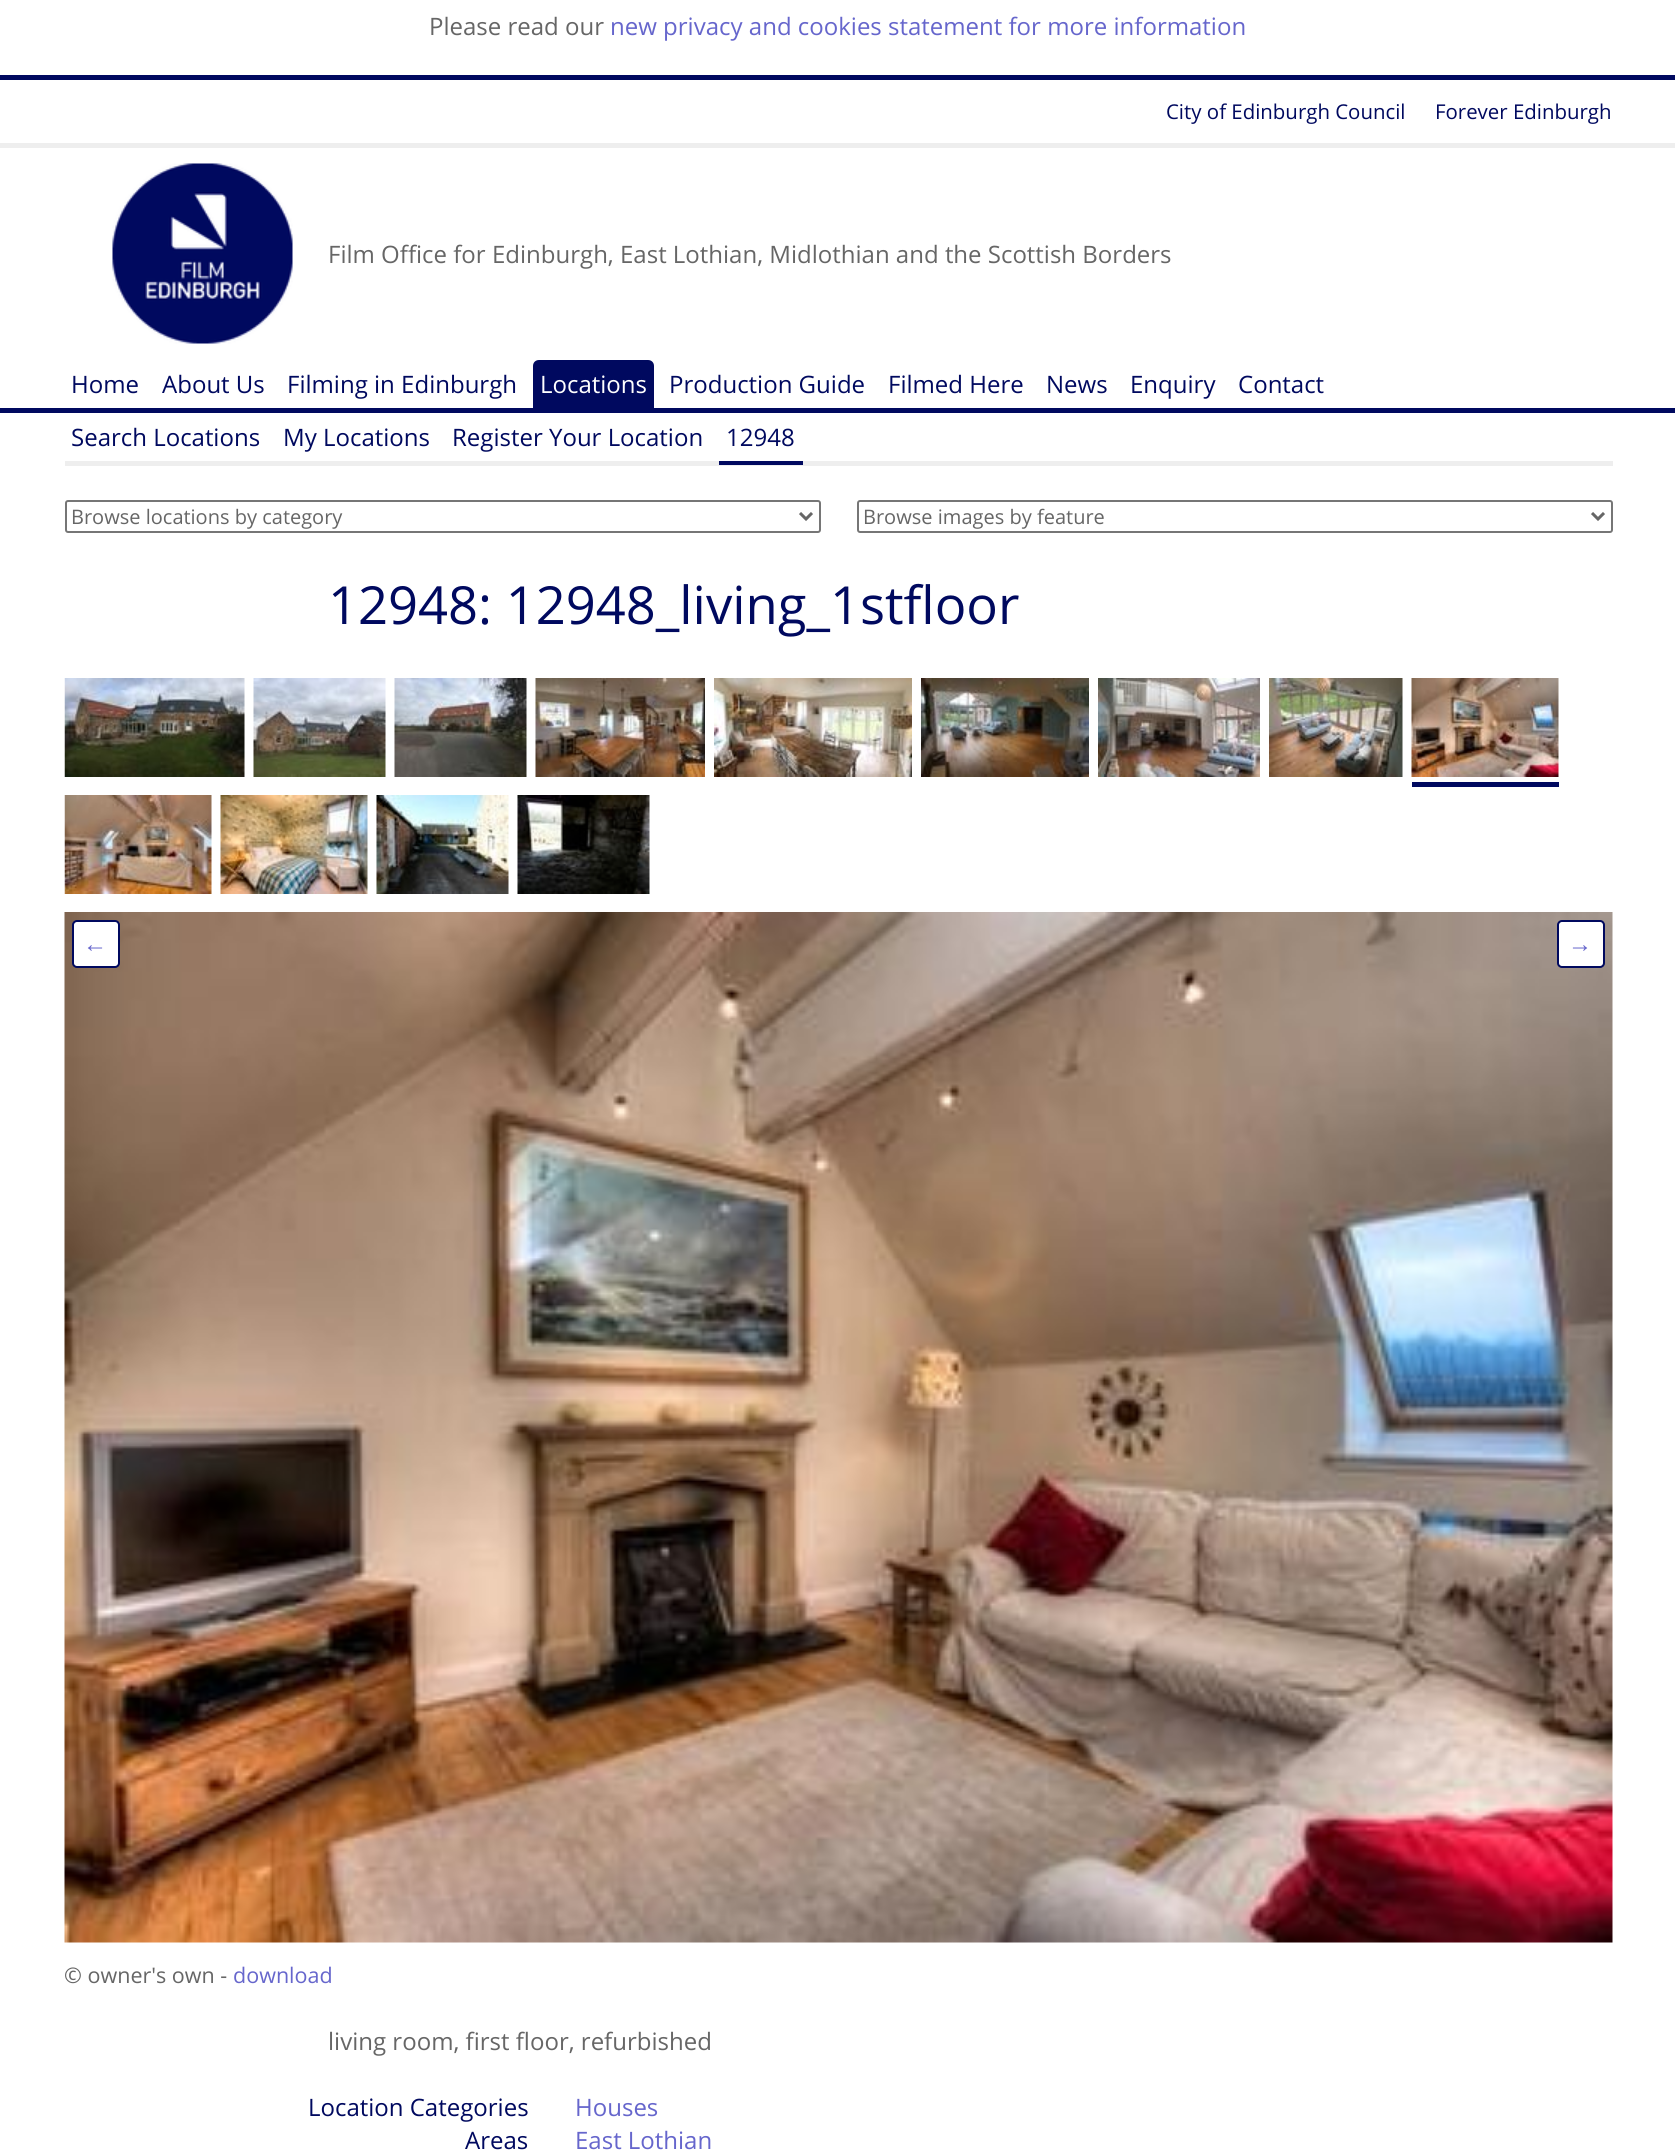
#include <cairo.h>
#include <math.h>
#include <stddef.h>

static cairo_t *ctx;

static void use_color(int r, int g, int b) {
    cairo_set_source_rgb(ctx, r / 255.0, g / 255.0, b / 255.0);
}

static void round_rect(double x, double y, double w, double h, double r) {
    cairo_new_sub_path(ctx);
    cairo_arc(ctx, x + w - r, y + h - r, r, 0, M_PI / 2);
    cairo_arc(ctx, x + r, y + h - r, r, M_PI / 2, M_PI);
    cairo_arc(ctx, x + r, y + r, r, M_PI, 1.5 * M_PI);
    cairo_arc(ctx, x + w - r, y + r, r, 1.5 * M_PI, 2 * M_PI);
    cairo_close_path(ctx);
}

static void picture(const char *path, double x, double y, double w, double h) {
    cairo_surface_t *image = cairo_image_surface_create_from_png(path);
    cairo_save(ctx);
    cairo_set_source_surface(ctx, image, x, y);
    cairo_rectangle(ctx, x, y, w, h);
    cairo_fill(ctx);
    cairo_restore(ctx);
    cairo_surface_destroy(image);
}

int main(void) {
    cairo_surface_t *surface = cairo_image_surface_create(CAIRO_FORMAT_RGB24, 1675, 2156);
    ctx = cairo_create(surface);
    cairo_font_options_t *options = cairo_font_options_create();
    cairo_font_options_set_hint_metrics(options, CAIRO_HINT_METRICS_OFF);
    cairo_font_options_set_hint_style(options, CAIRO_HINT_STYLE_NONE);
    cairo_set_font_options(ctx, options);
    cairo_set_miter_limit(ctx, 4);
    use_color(255, 255, 255);
    cairo_paint(ctx);
    use_color(0, 9, 95);
    cairo_rectangle(ctx, 0, 75, 1675, 5);
    cairo_fill(ctx);
    cairo_select_font_face(ctx, "Open Sans", CAIRO_FONT_SLANT_NORMAL, CAIRO_FONT_WEIGHT_NORMAL);
    cairo_set_font_size(ctx, 24);
    use_color(102, 102, 102);
    cairo_move_to(ctx, 429, 35);
    cairo_show_text(ctx, "Please read our");
    use_color(102, 102, 204);
    cairo_move_to(ctx, 610, 35);
    cairo_show_text(ctx, "new privacy and cookies statement for more information");
    use_color(238, 238, 238);
    cairo_rectangle(ctx, 0, 143, 1675, 5);
    cairo_fill(ctx);
    cairo_set_font_size(ctx, 20.4);
    use_color(0, 9, 95);
    cairo_move_to(ctx, 1166, 119);
    cairo_show_text(ctx, "City of Edinburgh Council");
    cairo_move_to(ctx, 1435, 119);
    cairo_show_text(ctx, "Forever Edinburgh");
    picture("img1.png", 112, 163, 181, 181);
    cairo_set_font_size(ctx, 24);
    use_color(102, 102, 102);
    cairo_move_to(ctx, 328, 263);
    cairo_show_text(ctx, "Film Office for Edinburgh, East Lothian, Midlothian and the Scottish Borders");
    use_color(0, 9, 95);
    cairo_rectangle(ctx, 0, 408, 1675, 5);
    cairo_fill(ctx);
    cairo_move_to(ctx, 71, 393);
    cairo_show_text(ctx, "Home");
    cairo_move_to(ctx, 162, 393);
    cairo_show_text(ctx, "About Us");
    cairo_move_to(ctx, 287, 393);
    cairo_show_text(ctx, "Filming in Edinburgh");
    cairo_new_path(ctx);
    cairo_move_to(ctx, 539, 360);
    cairo_line_to(ctx, 648, 360);
    cairo_curve_to(ctx, 651.5, 360, 654, 362.5, 654, 366);
    cairo_line_to(ctx, 654, 408);
    cairo_line_to(ctx, 533, 408);
    cairo_line_to(ctx, 533, 366);
    cairo_curve_to(ctx, 533, 362.5, 535.5, 360, 539, 360);
    cairo_close_path(ctx);
    cairo_fill(ctx);
    use_color(255, 255, 255);
    cairo_move_to(ctx, 540, 393);
    cairo_show_text(ctx, "Locations");
    use_color(0, 9, 95);
    cairo_move_to(ctx, 669, 393);
    cairo_show_text(ctx, "Production Guide");
    cairo_move_to(ctx, 888, 393);
    cairo_show_text(ctx, "Filmed Here");
    cairo_move_to(ctx, 1046, 393);
    cairo_show_text(ctx, "News");
    cairo_move_to(ctx, 1130, 393);
    cairo_show_text(ctx, "Enquiry");
    cairo_move_to(ctx, 1238, 393);
    cairo_show_text(ctx, "Contact");
    use_color(238, 238, 238);
    cairo_rectangle(ctx, 65, 461, 1548, 5);
    cairo_fill(ctx);
    use_color(0, 9, 95);
    cairo_move_to(ctx, 71, 446);
    cairo_show_text(ctx, "Search Locations");
    cairo_move_to(ctx, 283, 446);
    cairo_show_text(ctx, "My Locations");
    cairo_move_to(ctx, 452, 446);
    cairo_show_text(ctx, "Register Your Location");
    cairo_rectangle(ctx, 719, 461, 84, 4);
    cairo_fill(ctx);
    cairo_move_to(ctx, 726, 446);
    cairo_show_text(ctx, "12948");
    round_rect(66, 501, 754, 31, 2);
    use_color(118, 118, 118);
    cairo_stroke(ctx);
    cairo_new_path(ctx);
    cairo_move_to(ctx, 800, 513);
    cairo_line_to(ctx, 806, 519);
    cairo_line_to(ctx, 812, 513);
    use_color(102, 102, 102);
    cairo_set_line_width(ctx, 3);
    cairo_stroke(ctx);
    cairo_set_font_size(ctx, 20);
    cairo_move_to(ctx, 71, 524);
    cairo_show_text(ctx, "Browse locations by category");
    round_rect(858, 501, 754, 31, 2);
    use_color(118, 118, 118);
    cairo_set_line_width(ctx, 2);
    cairo_stroke(ctx);
    cairo_new_path(ctx);
    cairo_move_to(ctx, 1592, 513);
    cairo_line_to(ctx, 1598, 519);
    cairo_line_to(ctx, 1604, 513);
    use_color(102, 102, 102);
    cairo_set_line_width(ctx, 3);
    cairo_stroke(ctx);
    cairo_move_to(ctx, 863, 524);
    cairo_show_text(ctx, "Browse images by feature");
    cairo_set_font_size(ctx, 52.5);
    use_color(0, 9, 95);
    cairo_move_to(ctx, 328, 624);
    cairo_show_text(ctx, "12948: 12948_living_1stfloor");
    picture("img2.png", 64, 678, 181, 99);
    picture("img3.png", 253, 678, 133, 99);
    picture("img4.png", 394, 678, 133, 99);
    picture("img5.png", 535, 678, 170, 99);
    picture("img6.png", 714, 678, 198, 99);
    picture("img7.png", 921, 678, 168, 99);
    picture("img8.png", 1098, 678, 162, 99);
    picture("img9.png", 1269, 678, 134, 99);
    cairo_rectangle(ctx, 1412, 782, 147, 5);
    cairo_fill(ctx);
    picture("img10.png", 1411, 678, 148, 99);
    picture("img11.png", 64, 795, 148, 99);
    picture("img12.png", 220, 795, 148, 99);
    picture("img13.png", 376, 795, 133, 99);
    picture("img14.png", 517, 795, 133, 99);
    picture("img15.png", 64, 912, 1549, 1031);
    use_color(255, 255, 255);
    round_rect(73, 921, 46, 46, 4);
    cairo_fill_preserve(ctx);
    use_color(0, 9, 95);
    cairo_set_line_width(ctx, 2);
    cairo_stroke(ctx);
    cairo_select_font_face(ctx, "Liberation Serif", CAIRO_FONT_SLANT_NORMAL, CAIRO_FONT_WEIGHT_NORMAL);
    cairo_set_font_size(ctx, 24);
    use_color(102, 102, 204);
    cairo_move_to(ctx, 83, 952);
    cairo_show_text(ctx, "←");
    use_color(255, 255, 255);
    round_rect(1558, 921, 46, 46, 4);
    cairo_fill_preserve(ctx);
    use_color(0, 9, 95);
    cairo_stroke(ctx);
    use_color(102, 102, 204);
    cairo_move_to(ctx, 1568, 952);
    cairo_show_text(ctx, "→");
    cairo_select_font_face(ctx, "Open Sans", CAIRO_FONT_SLANT_NORMAL, CAIRO_FONT_WEIGHT_NORMAL);
    cairo_set_font_size(ctx, 21.5);
    use_color(102, 102, 102);
    cairo_move_to(ctx, 64, 1983);
    cairo_show_text(ctx, "© owner's own -");
    use_color(102, 102, 204);
    cairo_move_to(ctx, 233, 1983);
    cairo_show_text(ctx, "download");
    cairo_set_font_size(ctx, 24);
    use_color(102, 102, 102);
    cairo_move_to(ctx, 328, 2050);
    cairo_show_text(ctx, "living room, first floor, refurbished");
    use_color(0, 9, 95);
    cairo_move_to(ctx, 308, 2116);
    cairo_show_text(ctx, "Location Categories");
    use_color(102, 102, 204);
    cairo_move_to(ctx, 575, 2116);
    cairo_show_text(ctx, "Houses");
    use_color(0, 9, 95);
    cairo_move_to(ctx, 465, 2149);
    cairo_show_text(ctx, "Areas");
    use_color(102, 102, 204);
    cairo_move_to(ctx, 575, 2149);
    cairo_show_text(ctx, "East Lothian");
    cairo_surface_write_to_png(surface, "result.png");
    cairo_font_options_destroy(options);
    cairo_destroy(ctx);
    cairo_surface_destroy(surface);
    return 0;
}
